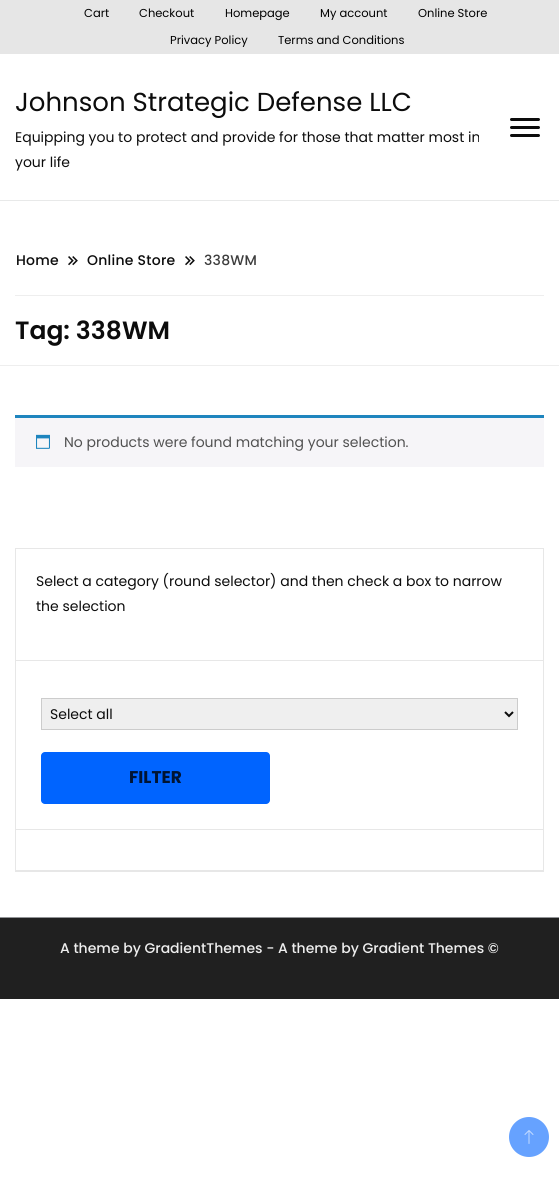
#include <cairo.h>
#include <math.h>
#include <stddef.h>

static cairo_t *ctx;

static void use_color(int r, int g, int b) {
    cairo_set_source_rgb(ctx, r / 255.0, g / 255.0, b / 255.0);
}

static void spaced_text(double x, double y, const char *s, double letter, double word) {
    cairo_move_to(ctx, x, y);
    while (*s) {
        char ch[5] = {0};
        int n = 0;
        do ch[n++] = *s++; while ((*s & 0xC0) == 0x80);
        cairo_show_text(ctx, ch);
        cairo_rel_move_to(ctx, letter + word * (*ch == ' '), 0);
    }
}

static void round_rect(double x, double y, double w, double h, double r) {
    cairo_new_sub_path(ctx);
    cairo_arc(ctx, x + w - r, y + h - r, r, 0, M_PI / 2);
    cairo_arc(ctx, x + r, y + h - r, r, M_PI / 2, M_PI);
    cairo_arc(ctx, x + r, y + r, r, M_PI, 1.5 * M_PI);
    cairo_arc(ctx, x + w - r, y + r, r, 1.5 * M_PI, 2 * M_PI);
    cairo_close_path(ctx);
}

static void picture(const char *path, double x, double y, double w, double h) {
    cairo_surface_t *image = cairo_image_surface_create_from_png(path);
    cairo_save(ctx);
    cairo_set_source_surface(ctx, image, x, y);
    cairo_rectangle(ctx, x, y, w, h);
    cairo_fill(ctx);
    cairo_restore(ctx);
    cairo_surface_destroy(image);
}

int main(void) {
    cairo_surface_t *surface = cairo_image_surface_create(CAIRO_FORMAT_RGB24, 559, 1182);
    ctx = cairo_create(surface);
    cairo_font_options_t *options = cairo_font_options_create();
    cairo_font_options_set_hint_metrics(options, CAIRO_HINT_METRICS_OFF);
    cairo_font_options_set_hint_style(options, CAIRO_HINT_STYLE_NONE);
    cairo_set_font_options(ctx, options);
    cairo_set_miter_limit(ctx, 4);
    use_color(255, 255, 255);
    cairo_paint(ctx);
    use_color(232, 233, 233);
    cairo_rectangle(ctx, 0, 200, 559, 1);
    cairo_fill(ctx);
    use_color(230, 230, 230);
    cairo_rectangle(ctx, 0, 0, 559, 54);
    cairo_fill(ctx);
    cairo_select_font_face(ctx, "Poppins", CAIRO_FONT_SLANT_NORMAL, CAIRO_FONT_WEIGHT_NORMAL);
    cairo_set_font_size(ctx, 11.5);
    use_color(0, 0, 0);
    cairo_move_to(ctx, 84, 17);
    cairo_show_text(ctx, "Cart");
    cairo_move_to(ctx, 139, 17);
    cairo_show_text(ctx, "Checkout");
    cairo_move_to(ctx, 225, 17);
    cairo_show_text(ctx, "Homepage");
    cairo_move_to(ctx, 320, 17);
    cairo_show_text(ctx, "My account");
    cairo_move_to(ctx, 418, 17);
    cairo_show_text(ctx, "Online Store");
    cairo_move_to(ctx, 170, 44);
    cairo_show_text(ctx, "Privacy Policy");
    cairo_move_to(ctx, 278, 44);
    cairo_show_text(ctx, "Terms and Conditions");
    cairo_set_font_size(ctx, 26);
    use_color(12, 12, 12);
    cairo_move_to(ctx, 15, 111);
    cairo_show_text(ctx, "Johnson Strategic Defense LLC");
    cairo_set_font_size(ctx, 14);
    cairo_move_to(ctx, 15, 142);
    cairo_show_text(ctx, "Equipping you to protect and provide for those that matter most in");
    cairo_move_to(ctx, 15, 167);
    cairo_show_text(ctx, "your life");
    round_rect(510, 118, 30, 3, 1.5);
    cairo_fill(ctx);
    round_rect(510, 126, 30, 3, 1.5);
    cairo_fill(ctx);
    round_rect(510, 134, 30, 3, 1.5);
    cairo_fill(ctx);
    use_color(238, 238, 238);
    cairo_rectangle(ctx, 0, 365, 559, 1);
    cairo_fill(ctx);
    cairo_rectangle(ctx, 15, 295, 529, 1);
    cairo_fill(ctx);
    cairo_select_font_face(ctx, "Poppins Medium", CAIRO_FONT_SLANT_NORMAL, CAIRO_FONT_WEIGHT_NORMAL);
    use_color(12, 12, 12);
    spaced_text(16, 265, "Home", 0.25, 0);
    picture("img1.png", 68, 256, 10, 10);
    spaced_text(87, 265, "Online Store", 0.25, 0);
    picture("img1.png", 185, 256, 10, 10);
    use_color(61, 61, 61);
    spaced_text(204, 265, "338WM", 0.25, 0);
    cairo_select_font_face(ctx, "Poppins SemiBold", CAIRO_FONT_SLANT_NORMAL, CAIRO_FONT_WEIGHT_NORMAL);
    cairo_set_font_size(ctx, 25);
    use_color(12, 12, 12);
    cairo_move_to(ctx, 15, 339);
    cairo_show_text(ctx, "Tag: 338WM");
    use_color(246, 245, 248);
    cairo_rectangle(ctx, 15, 418, 529, 49);
    cairo_fill(ctx);
    use_color(30, 133, 190);
    cairo_rectangle(ctx, 15, 415, 529, 3);
    cairo_fill(ctx);
    picture("img2.png", 36, 434, 14, 15);
    cairo_select_font_face(ctx, "Poppins", CAIRO_FONT_SLANT_NORMAL, CAIRO_FONT_WEIGHT_NORMAL);
    cairo_set_font_size(ctx, 14);
    use_color(81, 81, 81);
    cairo_move_to(ctx, 64, 447);
    cairo_show_text(ctx, "No products were found matching your selection.");
    cairo_rectangle(ctx, 15.5, 548.5, 528, 323);
    use_color(231, 231, 231);
    cairo_set_line_width(ctx, 1);
    cairo_stroke(ctx);
    cairo_rectangle(ctx, 16, 660, 527, 1);
    cairo_fill(ctx);
    use_color(12, 12, 12);
    cairo_move_to(ctx, 36, 586);
    cairo_show_text(ctx, "Select a category (round selector) and then check a box to narrow");
    cairo_move_to(ctx, 36, 611);
    cairo_show_text(ctx, "the selection");
    use_color(231, 231, 231);
    cairo_rectangle(ctx, 16, 829, 527, 1);
    cairo_fill(ctx);
    use_color(239, 239, 239);
    cairo_rectangle(ctx, 41.5, 698.5, 476, 31);
    cairo_fill_preserve(ctx);
    use_color(204, 204, 204);
    cairo_stroke(ctx);
    cairo_new_path(ctx);
    cairo_move_to(ctx, 505, 712);
    cairo_line_to(ctx, 509, 716);
    cairo_line_to(ctx, 513, 712);
    use_color(12, 12, 12);
    cairo_set_line_width(ctx, 2);
    cairo_stroke(ctx);
    cairo_move_to(ctx, 50, 719);
    cairo_show_text(ctx, "Select all");
    use_color(0, 100, 255);
    round_rect(41, 752, 229, 52, 4);
    cairo_fill(ctx);
    cairo_select_font_face(ctx, "Poppins", CAIRO_FONT_SLANT_NORMAL, CAIRO_FONT_WEIGHT_BOLD);
    cairo_set_font_size(ctx, 17);
    use_color(0, 20, 51);
    cairo_move_to(ctx, 129, 783);
    cairo_show_text(ctx, "FILTER");
    use_color(231, 231, 231);
    cairo_rectangle(ctx, 16, 870, 527, 1);
    cairo_fill(ctx);
    use_color(32, 32, 32);
    cairo_rectangle(ctx, 0, 918, 559, 81);
    cairo_fill(ctx);
    use_color(146, 148, 151);
    cairo_rectangle(ctx, 0, 917, 559, 1);
    cairo_fill(ctx);
    cairo_select_font_face(ctx, "Poppins Medium", CAIRO_FONT_SLANT_NORMAL, CAIRO_FONT_WEIGHT_NORMAL);
    cairo_set_font_size(ctx, 14);
    use_color(238, 238, 238);
    cairo_move_to(ctx, 60, 953);
    cairo_show_text(ctx, "A theme by GradientThemes - A theme by Gradient Themes ©");
    use_color(102, 162, 255);
    cairo_new_path(ctx);
    cairo_arc(ctx, 529, 1137, 20, 0, 2 * M_PI);
    cairo_fill(ctx);
    picture("img3.png", 524, 1130, 10, 14);
    cairo_surface_write_to_png(surface, "result.png");
    cairo_font_options_destroy(options);
    cairo_destroy(ctx);
    cairo_surface_destroy(surface);
    return 0;
}
